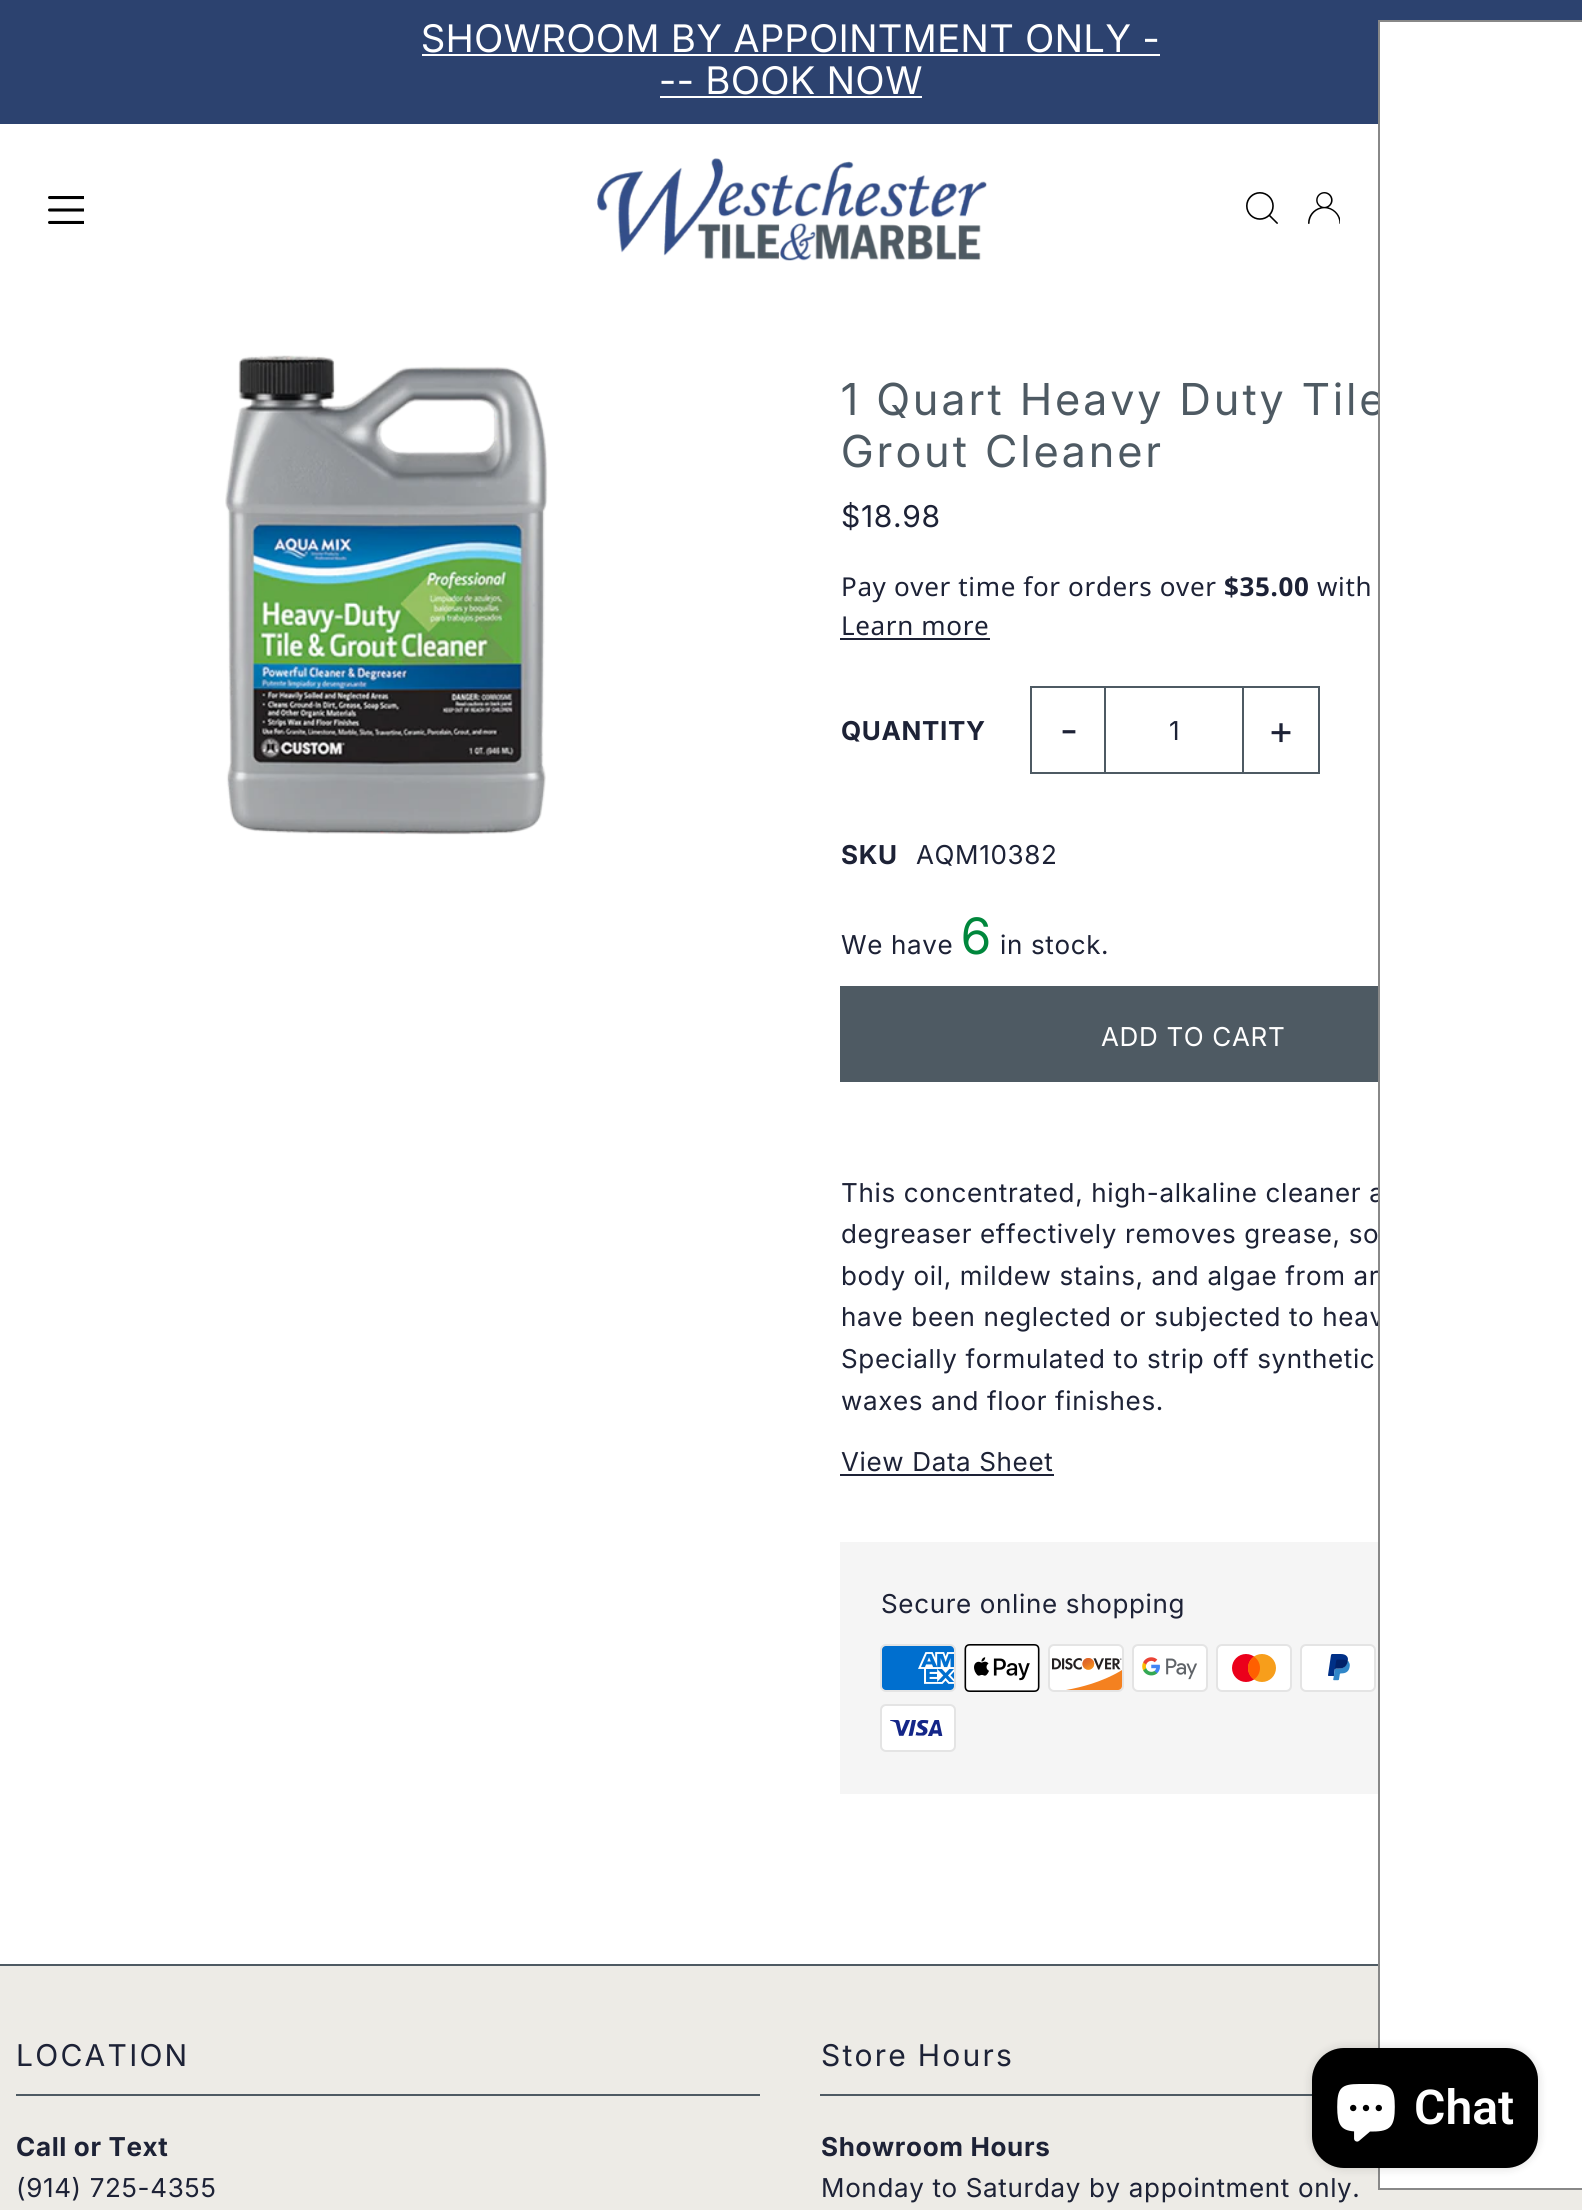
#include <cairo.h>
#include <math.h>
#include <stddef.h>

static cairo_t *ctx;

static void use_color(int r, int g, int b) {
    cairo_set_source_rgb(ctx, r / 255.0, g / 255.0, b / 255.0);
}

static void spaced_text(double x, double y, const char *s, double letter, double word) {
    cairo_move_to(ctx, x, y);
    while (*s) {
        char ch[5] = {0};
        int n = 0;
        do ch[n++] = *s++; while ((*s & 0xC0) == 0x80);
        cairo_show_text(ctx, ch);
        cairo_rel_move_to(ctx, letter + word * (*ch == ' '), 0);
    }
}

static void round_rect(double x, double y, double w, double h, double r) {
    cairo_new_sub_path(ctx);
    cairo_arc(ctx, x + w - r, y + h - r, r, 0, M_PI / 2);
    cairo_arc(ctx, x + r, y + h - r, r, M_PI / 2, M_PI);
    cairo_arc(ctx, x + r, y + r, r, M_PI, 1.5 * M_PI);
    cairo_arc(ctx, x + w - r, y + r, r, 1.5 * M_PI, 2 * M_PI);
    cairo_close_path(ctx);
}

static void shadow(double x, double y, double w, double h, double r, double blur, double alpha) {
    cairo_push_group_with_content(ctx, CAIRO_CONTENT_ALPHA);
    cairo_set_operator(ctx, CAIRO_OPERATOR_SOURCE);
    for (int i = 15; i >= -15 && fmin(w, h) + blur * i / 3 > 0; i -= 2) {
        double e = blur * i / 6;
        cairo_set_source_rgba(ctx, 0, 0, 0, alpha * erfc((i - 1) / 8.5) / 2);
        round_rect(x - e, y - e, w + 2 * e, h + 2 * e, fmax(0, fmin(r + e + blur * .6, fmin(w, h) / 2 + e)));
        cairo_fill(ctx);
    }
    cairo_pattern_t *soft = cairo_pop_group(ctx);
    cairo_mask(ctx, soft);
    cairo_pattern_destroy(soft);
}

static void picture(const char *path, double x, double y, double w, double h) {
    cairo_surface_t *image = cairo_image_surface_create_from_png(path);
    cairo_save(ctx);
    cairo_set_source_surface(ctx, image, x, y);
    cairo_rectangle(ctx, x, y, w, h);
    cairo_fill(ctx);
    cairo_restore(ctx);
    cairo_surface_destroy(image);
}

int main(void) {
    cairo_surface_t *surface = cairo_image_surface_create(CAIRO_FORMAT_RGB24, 1582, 2210);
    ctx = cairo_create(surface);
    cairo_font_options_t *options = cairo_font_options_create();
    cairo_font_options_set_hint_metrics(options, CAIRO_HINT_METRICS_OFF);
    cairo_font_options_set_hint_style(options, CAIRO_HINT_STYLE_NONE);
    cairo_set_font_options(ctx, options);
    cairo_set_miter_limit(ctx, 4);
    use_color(255, 255, 255);
    cairo_paint(ctx);
    use_color(44, 66, 111);
    cairo_rectangle(ctx, 0, 0, 1582, 124);
    cairo_fill(ctx);
    cairo_select_font_face(ctx, "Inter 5", CAIRO_FONT_SLANT_NORMAL, CAIRO_FONT_WEIGHT_NORMAL);
    cairo_set_font_size(ctx, 38);
    use_color(255, 255, 255);
    spaced_text(421, 52, "SHOWROOM BY APPOINTMENT ONLY -", 0.65, 0);
    cairo_rectangle(ctx, 422, 54, 738, 2);
    cairo_fill(ctx);
    spaced_text(659, 94, "-- BOOK NOW", 0.65, 0);
    cairo_rectangle(ctx, 660, 96, 262, 2);
    cairo_fill(ctx);
    picture("img1.png", 48, 196, 36, 28);
    picture("img2.png", 597, 158, 390, 103);
    picture("img3.png", 1246, 192, 32, 32);
    picture("img4.png", 1308, 192, 32, 32);
    picture("img5.png", 225, 355, 323, 480);
    cairo_select_font_face(ctx, "Inter", CAIRO_FONT_SLANT_NORMAL, CAIRO_FONT_WEIGHT_NORMAL);
    cairo_set_font_size(ctx, 44);
    use_color(78, 90, 99);
    spaced_text(841, 415, "1 Quart Heavy Duty Tile", 3.3, 0);
    spaced_text(841, 467, "Grout Cleaner", 3.3, 0);
    cairo_select_font_face(ctx, "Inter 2", CAIRO_FONT_SLANT_NORMAL, CAIRO_FONT_WEIGHT_NORMAL);
    cairo_set_font_size(ctx, 30);
    use_color(29, 34, 54);
    spaced_text(841, 527, "$18.98", 0.65, 0);
    cairo_select_font_face(ctx, "Noto Sans", CAIRO_FONT_SLANT_NORMAL, CAIRO_FONT_WEIGHT_NORMAL);
    cairo_set_font_size(ctx, 26);
    spaced_text(841, 596, "Pay over time for orders over", 0.65, 0);
    cairo_select_font_face(ctx, "Noto Sans", CAIRO_FONT_SLANT_NORMAL, CAIRO_FONT_WEIGHT_BOLD);
    spaced_text(1224, 596, "$35.00", 0.65, 0);
    cairo_select_font_face(ctx, "Noto Sans", CAIRO_FONT_SLANT_NORMAL, CAIRO_FONT_WEIGHT_NORMAL);
    spaced_text(1317, 596, "with", 0.65, 0);
    spaced_text(841, 635, "Learn more", 0.65, 0);
    cairo_rectangle(ctx, 840, 638, 150, 2);
    cairo_fill(ctx);
    cairo_select_font_face(ctx, "Inter", CAIRO_FONT_SLANT_NORMAL, CAIRO_FONT_WEIGHT_BOLD);
    spaced_text(841, 740, "QUANTITY", 0.65, 0);
    use_color(78, 90, 99);
    cairo_rectangle(ctx, 1030, 686, 76, 2);
    cairo_fill(ctx);
    cairo_rectangle(ctx, 1030, 772, 76, 2);
    cairo_fill(ctx);
    cairo_rectangle(ctx, 1030, 686, 2, 88);
    cairo_fill(ctx);
    cairo_select_font_face(ctx, "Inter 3", CAIRO_FONT_SLANT_NORMAL, CAIRO_FONT_WEIGHT_NORMAL);
    cairo_set_font_size(ctx, 40);
    use_color(29, 34, 54);
    spaced_text(1060, 744, "-", 1, 0);
    cairo_rectangle(ctx, 1105, 687, 138, 86);
    use_color(78, 90, 99);
    cairo_stroke(ctx);
    cairo_select_font_face(ctx, "Inter 2", CAIRO_FONT_SLANT_NORMAL, CAIRO_FONT_WEIGHT_NORMAL);
    cairo_set_font_size(ctx, 26);
    use_color(29, 34, 54);
    spaced_text(1169, 740, "1", 0.65, 0);
    use_color(78, 90, 99);
    cairo_rectangle(ctx, 1244, 686, 76, 2);
    cairo_fill(ctx);
    cairo_rectangle(ctx, 1318, 686, 2, 88);
    cairo_fill(ctx);
    cairo_rectangle(ctx, 1244, 772, 76, 2);
    cairo_fill(ctx);
    cairo_select_font_face(ctx, "Inter 3", CAIRO_FONT_SLANT_NORMAL, CAIRO_FONT_WEIGHT_NORMAL);
    cairo_set_font_size(ctx, 40);
    use_color(29, 34, 54);
    spaced_text(1268, 744, "+", 1, 0);
    cairo_select_font_face(ctx, "Inter", CAIRO_FONT_SLANT_NORMAL, CAIRO_FONT_WEIGHT_BOLD);
    cairo_set_font_size(ctx, 26);
    spaced_text(841, 864, "SKU", 0.65, 0);
    cairo_select_font_face(ctx, "Inter 2", CAIRO_FONT_SLANT_NORMAL, CAIRO_FONT_WEIGHT_NORMAL);
    spaced_text(916, 864, "AQM10382", 0.65, 0);
    spaced_text(841, 954, "We have", 0.65, 0);
    cairo_select_font_face(ctx, "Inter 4", CAIRO_FONT_SLANT_NORMAL, CAIRO_FONT_WEIGHT_NORMAL);
    cairo_set_font_size(ctx, 50);
    use_color(0, 135, 60);
    spaced_text(961, 954, "6", 0.65, 0);
    cairo_select_font_face(ctx, "Inter 2", CAIRO_FONT_SLANT_NORMAL, CAIRO_FONT_WEIGHT_NORMAL);
    cairo_set_font_size(ctx, 26);
    use_color(29, 34, 54);
    spaced_text(1000, 954, "in stock.", 0.65, 0);
    use_color(78, 90, 99);
    cairo_rectangle(ctx, 840, 986, 538, 96);
    cairo_fill(ctx);
    use_color(255, 255, 255);
    spaced_text(1101, 1046, "ADD TO CART", 0.65, 0);
    use_color(29, 34, 54);
    spaced_text(841, 1202, "This concentrated, high-alkaline cleaner a", 0.65, 0);
    spaced_text(841, 1243, "degreaser effectively removes grease, so", 0.65, 0);
    spaced_text(841, 1285, "body oil, mildew stains, and algae from ar", 0.65, 0);
    spaced_text(841, 1326, "have been neglected or subjected to heav", 0.65, 0);
    spaced_text(841, 1368, "Specially formulated to strip off synthetic", 0.65, 0);
    spaced_text(841, 1410, "waxes and floor finishes.", 0.65, 0);
    spaced_text(841, 1471, "View Data Sheet", 0.65, 0);
    cairo_rectangle(ctx, 840, 1474, 214, 2);
    cairo_fill(ctx);
    use_color(245, 245, 245);
    cairo_rectangle(ctx, 840, 1542, 538, 252);
    cairo_fill(ctx);
    use_color(29, 34, 54);
    spaced_text(881, 1613, "Secure online shopping", 0.65, 0);
    picture("img6.png", 880, 1644, 76, 48);
    picture("img7.png", 964, 1644, 76, 48);
    picture("img8.png", 1048, 1644, 76, 48);
    picture("img9.png", 1132, 1644, 76, 48);
    picture("img10.png", 1216, 1644, 76, 48);
    picture("img11.png", 1300, 1644, 76, 48);
    picture("img12.png", 880, 1704, 76, 48);
    use_color(237, 235, 230);
    cairo_rectangle(ctx, 0, 1966, 1582, 244);
    cairo_fill(ctx);
    use_color(78, 90, 99);
    cairo_rectangle(ctx, 0, 1964, 1378, 2);
    cairo_fill(ctx);
    cairo_rectangle(ctx, 16, 2094, 744, 2);
    cairo_fill(ctx);
    cairo_set_font_size(ctx, 30);
    use_color(29, 34, 54);
    spaced_text(16, 2066, "LOCATION", 2.25, 0);
    cairo_select_font_face(ctx, "Inter", CAIRO_FONT_SLANT_NORMAL, CAIRO_FONT_WEIGHT_BOLD);
    cairo_set_font_size(ctx, 26);
    spaced_text(16, 2156, "Call or Text", 0.65, 0);
    cairo_select_font_face(ctx, "Inter 2", CAIRO_FONT_SLANT_NORMAL, CAIRO_FONT_WEIGHT_NORMAL);
    spaced_text(16, 2197, "(914) 725-4355", 0.65, 0);
    use_color(78, 90, 99);
    cairo_rectangle(ctx, 820, 2094, 492, 2);
    cairo_fill(ctx);
    cairo_set_font_size(ctx, 30);
    use_color(29, 34, 54);
    spaced_text(821, 2066, "Store Hours", 2.25, -1);
    cairo_select_font_face(ctx, "Inter", CAIRO_FONT_SLANT_NORMAL, CAIRO_FONT_WEIGHT_BOLD);
    cairo_set_font_size(ctx, 26);
    spaced_text(821, 2156, "Showroom Hours", 0.65, 0);
    cairo_select_font_face(ctx, "Inter 2", CAIRO_FONT_SLANT_NORMAL, CAIRO_FONT_WEIGHT_NORMAL);
    spaced_text(821, 2197, "Monday to Saturday by appointment only.", 0.65, 0);
    use_color(255, 255, 255);
    cairo_rectangle(ctx, 1379, 21, 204, 2168);
    cairo_fill_preserve(ctx);
    use_color(136, 136, 136);
    cairo_stroke(ctx);
    use_color(0, 0, 0);
    shadow(1312, 2048, 226, 120, 32, 5, 0.15);
    use_color(0, 0, 0);
    round_rect(1312, 2048, 226, 120, 32);
    cairo_fill(ctx);
    picture("img13.png", 1337, 2084, 58, 58);
    cairo_select_font_face(ctx, "Roboto SemiBold", CAIRO_FONT_SLANT_NORMAL, CAIRO_FONT_WEIGHT_NORMAL);
    cairo_set_font_size(ctx, 48);
    use_color(255, 255, 255);
    cairo_move_to(ctx, 1414, 2124);
    cairo_show_text(ctx, "Chat");
    cairo_surface_write_to_png(surface, "result.png");
    cairo_font_options_destroy(options);
    cairo_destroy(ctx);
    cairo_surface_destroy(surface);
    return 0;
}
